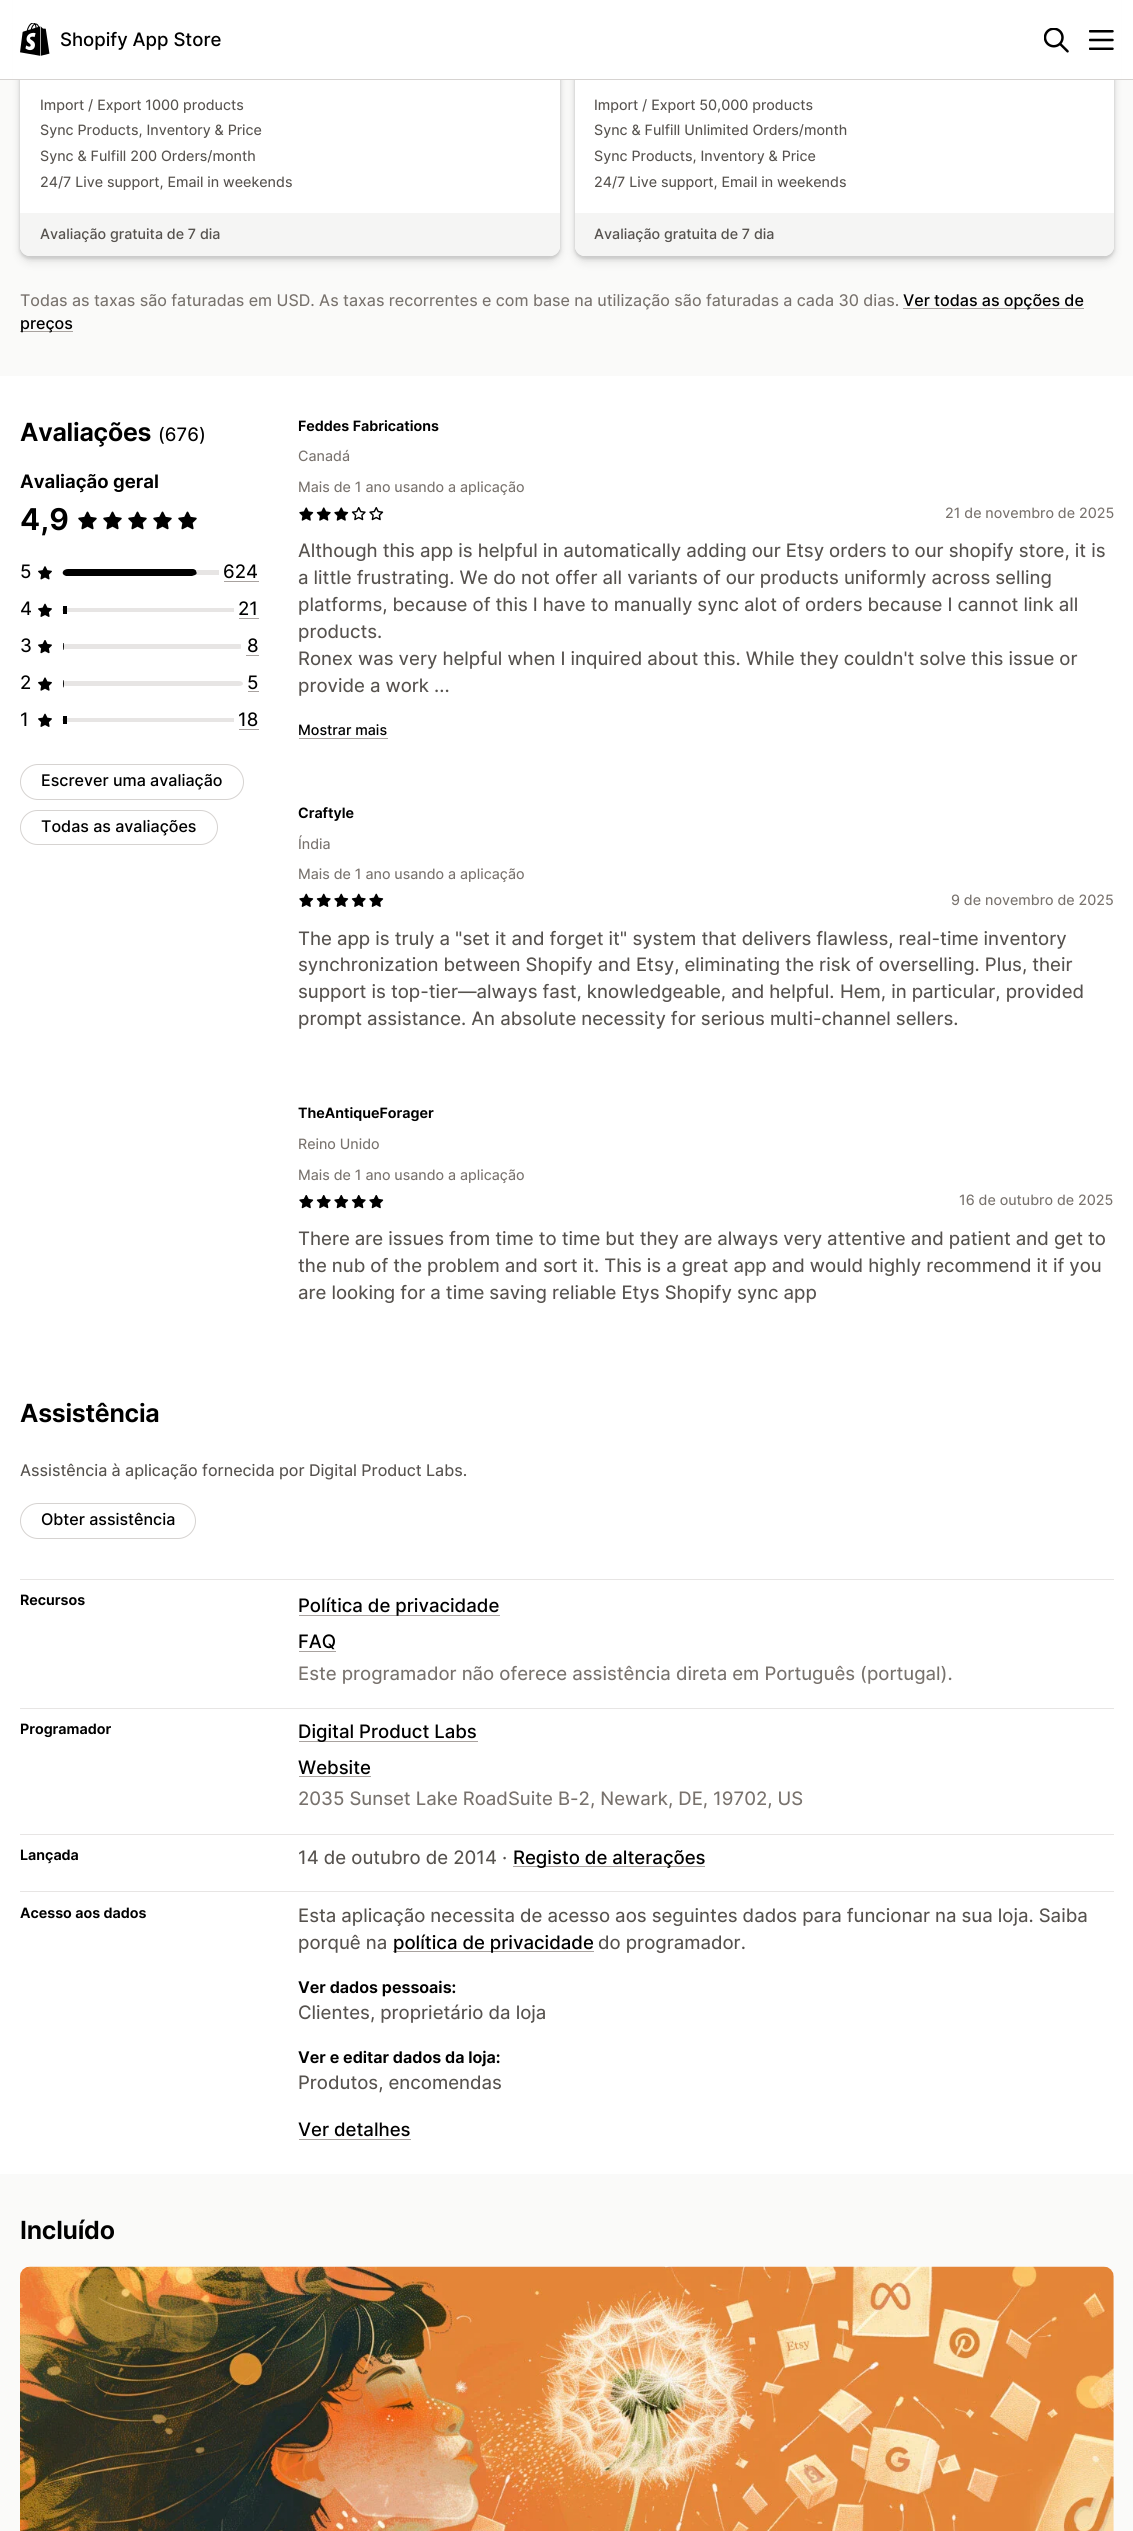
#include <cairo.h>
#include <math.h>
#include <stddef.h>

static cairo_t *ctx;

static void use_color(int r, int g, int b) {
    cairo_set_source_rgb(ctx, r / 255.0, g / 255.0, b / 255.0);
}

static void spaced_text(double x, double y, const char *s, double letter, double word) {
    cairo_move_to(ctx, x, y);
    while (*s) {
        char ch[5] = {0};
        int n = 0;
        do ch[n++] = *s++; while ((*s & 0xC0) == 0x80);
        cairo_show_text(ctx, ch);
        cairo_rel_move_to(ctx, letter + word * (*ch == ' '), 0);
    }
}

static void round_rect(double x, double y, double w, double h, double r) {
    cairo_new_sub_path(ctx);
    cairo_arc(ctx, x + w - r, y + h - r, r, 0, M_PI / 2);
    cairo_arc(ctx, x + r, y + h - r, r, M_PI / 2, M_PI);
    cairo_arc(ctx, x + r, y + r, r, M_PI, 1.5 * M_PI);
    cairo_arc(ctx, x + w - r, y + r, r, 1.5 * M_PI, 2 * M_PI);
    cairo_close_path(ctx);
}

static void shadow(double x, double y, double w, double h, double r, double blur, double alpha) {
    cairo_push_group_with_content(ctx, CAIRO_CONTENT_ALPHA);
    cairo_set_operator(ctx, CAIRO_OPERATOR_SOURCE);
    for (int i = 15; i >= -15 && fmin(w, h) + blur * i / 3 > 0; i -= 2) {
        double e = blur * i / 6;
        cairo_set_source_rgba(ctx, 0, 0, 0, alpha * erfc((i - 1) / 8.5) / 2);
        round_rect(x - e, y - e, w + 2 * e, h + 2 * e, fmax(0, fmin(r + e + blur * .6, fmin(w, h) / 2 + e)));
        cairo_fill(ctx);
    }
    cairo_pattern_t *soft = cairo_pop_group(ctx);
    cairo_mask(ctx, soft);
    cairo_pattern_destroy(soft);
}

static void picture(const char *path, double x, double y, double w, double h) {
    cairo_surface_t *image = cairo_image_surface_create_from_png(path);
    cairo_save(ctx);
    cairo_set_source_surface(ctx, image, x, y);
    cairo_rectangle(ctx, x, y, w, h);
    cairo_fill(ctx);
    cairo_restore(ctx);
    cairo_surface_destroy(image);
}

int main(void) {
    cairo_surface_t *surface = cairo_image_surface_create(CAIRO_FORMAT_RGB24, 1133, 2531);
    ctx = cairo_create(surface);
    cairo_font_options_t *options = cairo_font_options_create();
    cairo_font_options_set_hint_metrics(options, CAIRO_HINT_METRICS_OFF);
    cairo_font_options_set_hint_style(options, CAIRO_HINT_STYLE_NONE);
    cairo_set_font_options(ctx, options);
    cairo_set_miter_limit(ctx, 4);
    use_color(255, 255, 255);
    cairo_paint(ctx);
    use_color(250, 250, 249);
    cairo_rectangle(ctx, 0, 80, 1133, 296);
    cairo_fill(ctx);
    use_color(0, 0, 0);
    shadow(19, -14, 542, 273, 11, 1, 0.07);
    shadow(19, -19, 542, 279, 11, 2.5, 0.07);
    shadow(19, -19, 542, 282, 11, 5, 0.07);
    use_color(255, 255, 255);
    round_rect(20, -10, 540, 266, 10);
    cairo_fill(ctx);
    use_color(0, 0, 0);
    shadow(574, -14, 541, 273, 11, 1, 0.07);
    shadow(574, -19, 541, 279, 11, 2.5, 0.07);
    use_color(245, 245, 244);
    cairo_new_path(ctx);
    cairo_move_to(ctx, 20, 213);
    cairo_line_to(ctx, 560, 213);
    cairo_line_to(ctx, 560, 246);
    cairo_curve_to(ctx, 560, 251.5, 555.5, 256, 550, 256);
    cairo_line_to(ctx, 30, 256);
    cairo_curve_to(ctx, 24.5, 256, 20, 251.5, 20, 246);
    cairo_close_path(ctx);
    cairo_fill(ctx);
    use_color(0, 0, 0);
    shadow(574, -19, 541, 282, 11, 5, 0.07);
    use_color(255, 255, 255);
    round_rect(575, -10, 539, 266, 10);
    cairo_fill(ctx);
    cairo_rectangle(ctx, 13, 0, 1108, 79);
    cairo_fill(ctx);
    use_color(214, 211, 209);
    cairo_rectangle(ctx, 0, 79, 1133, 1);
    cairo_fill(ctx);
    picture("img1.png", 20, 23, 30, 33);
    cairo_select_font_face(ctx, "Inter Medium", CAIRO_FONT_SLANT_NORMAL, CAIRO_FONT_WEIGHT_NORMAL);
    cairo_set_font_size(ctx, 18.55);
    use_color(0, 0, 0);
    cairo_move_to(ctx, 60, 46);
    cairo_show_text(ctx, "Shopify App Store");
    picture("img2.png", 1044, 28, 25, 25);
    picture("img3.png", 1089, 30, 25, 20);
    cairo_select_font_face(ctx, "Inter", CAIRO_FONT_SLANT_NORMAL, CAIRO_FONT_WEIGHT_NORMAL);
    cairo_set_font_size(ctx, 14.25);
    use_color(86, 82, 78);
    cairo_move_to(ctx, 40, 110);
    cairo_show_text(ctx, "Import / Export 1000 products");
    cairo_move_to(ctx, 40, 135);
    cairo_show_text(ctx, "Sync Products, Inventory & Price");
    cairo_move_to(ctx, 40, 161);
    cairo_show_text(ctx, "Sync & Fulfill 200 Orders/month");
    cairo_move_to(ctx, 40, 187);
    cairo_show_text(ctx, "24/7 Live support, Email in weekends");
    cairo_select_font_face(ctx, "Inter Medium", CAIRO_FONT_SLANT_NORMAL, CAIRO_FONT_WEIGHT_NORMAL);
    cairo_move_to(ctx, 40, 239);
    cairo_show_text(ctx, "Avaliação gratuita de 7 dia");
    cairo_select_font_face(ctx, "Inter", CAIRO_FONT_SLANT_NORMAL, CAIRO_FONT_WEIGHT_NORMAL);
    cairo_move_to(ctx, 594, 110);
    cairo_show_text(ctx, "Import / Export 50,000 products");
    cairo_move_to(ctx, 594, 135);
    cairo_show_text(ctx, "Sync & Fulfill Unlimited Orders/month");
    cairo_move_to(ctx, 594, 161);
    cairo_show_text(ctx, "Sync Products, Inventory & Price");
    cairo_move_to(ctx, 594, 187);
    cairo_show_text(ctx, "24/7 Live support, Email in weekends");
    use_color(245, 245, 244);
    cairo_new_path(ctx);
    cairo_move_to(ctx, 575, 213);
    cairo_line_to(ctx, 1114, 213);
    cairo_line_to(ctx, 1114, 246);
    cairo_curve_to(ctx, 1114, 251.5, 1109.5, 256, 1104, 256);
    cairo_line_to(ctx, 585, 256);
    cairo_curve_to(ctx, 579.5, 256, 575, 251.5, 575, 246);
    cairo_close_path(ctx);
    cairo_fill(ctx);
    cairo_select_font_face(ctx, "Inter Medium", CAIRO_FONT_SLANT_NORMAL, CAIRO_FONT_WEIGHT_NORMAL);
    use_color(86, 82, 78);
    cairo_move_to(ctx, 594, 239);
    cairo_show_text(ctx, "Avaliação gratuita de 7 dia");
    cairo_select_font_face(ctx, "Inter", CAIRO_FONT_SLANT_NORMAL, CAIRO_FONT_WEIGHT_NORMAL);
    cairo_set_font_size(ctx, 16.05);
    use_color(120, 114, 109);
    cairo_move_to(ctx, 20, 306);
    cairo_show_text(ctx, "Todas as taxas são faturadas em USD. As taxas recorrentes e com base na utilização são faturadas a cada 30 dias.");
    use_color(168, 162, 159);
    cairo_rectangle(ctx, 903, 308, 181, 1);
    cairo_fill(ctx);
    cairo_select_font_face(ctx, "Inter Medium", CAIRO_FONT_SLANT_NORMAL, CAIRO_FONT_WEIGHT_NORMAL);
    use_color(0, 0, 0);
    cairo_move_to(ctx, 903, 306);
    cairo_show_text(ctx, "Ver todas as opções de");
    use_color(168, 162, 159);
    cairo_rectangle(ctx, 20, 331, 53, 1);
    cairo_fill(ctx);
    use_color(0, 0, 0);
    cairo_move_to(ctx, 20, 329);
    cairo_show_text(ctx, "preços");
    cairo_select_font_face(ctx, "Inter SemiBold", CAIRO_FONT_SLANT_NORMAL, CAIRO_FONT_WEIGHT_NORMAL);
    cairo_set_font_size(ctx, 25);
    spaced_text(20, 441, "Avaliações", -0.25, 0);
    cairo_select_font_face(ctx, "Inter", CAIRO_FONT_SLANT_NORMAL, CAIRO_FONT_WEIGHT_NORMAL);
    cairo_set_font_size(ctx, 18.55);
    cairo_move_to(ctx, 158, 441);
    cairo_show_text(ctx, "(676)");
    cairo_select_font_face(ctx, "Inter SemiBold", CAIRO_FONT_SLANT_NORMAL, CAIRO_FONT_WEIGHT_NORMAL);
    cairo_move_to(ctx, 20, 488);
    cairo_show_text(ctx, "Avaliação geral");
    cairo_set_font_size(ctx, 30);
    cairo_move_to(ctx, 20, 530);
    cairo_show_text(ctx, "4,9");
    picture("img4.png", 78, 511, 19, 19);
    picture("img4.png", 103, 511, 19, 19);
    picture("img4.png", 128, 511, 19, 19);
    picture("img4.png", 153, 511, 19, 19);
    picture("img4.png", 178, 511, 19, 19);
    cairo_select_font_face(ctx, "Inter", CAIRO_FONT_SLANT_NORMAL, CAIRO_FONT_WEIGHT_NORMAL);
    cairo_set_font_size(ctx, 18.55);
    cairo_move_to(ctx, 20, 578);
    cairo_show_text(ctx, "5");
    picture("img5.png", 38, 566, 14, 14);
    cairo_save(ctx);
    cairo_rectangle(ctx, 63, 570, 186, 5);
    cairo_clip(ctx);
    use_color(231, 229, 228);
    cairo_new_path(ctx);
    cairo_move_to(ctx, 66, 570);
    cairo_line_to(ctx, 239, 570);
    cairo_curve_to(ctx, 241, 570, 243, 571, 243, 572);
    cairo_curve_to(ctx, 243, 574, 241, 575, 239, 575);
    cairo_line_to(ctx, 66, 575);
    cairo_curve_to(ctx, 64, 575, 62, 574, 62, 572);
    cairo_curve_to(ctx, 62, 571, 64, 570, 66, 570);
    cairo_close_path(ctx);
    cairo_fill(ctx);
    cairo_restore(ctx);
    use_color(255, 255, 255);
    cairo_rectangle(ctx, 219, 570, 24, 5);
    cairo_fill(ctx);
    use_color(0, 0, 0);
    cairo_move_to(ctx, 223, 578);
    cairo_show_text(ctx, "624");
    use_color(168, 162, 159);
    cairo_rectangle(ctx, 224, 581, 35, 1);
    cairo_fill(ctx);
    use_color(0, 0, 0);
    cairo_new_path(ctx);
    cairo_move_to(ctx, 68, 569);
    cairo_line_to(ctx, 193, 569);
    cairo_curve_to(ctx, 194, 569, 196, 570, 196, 571);
    cairo_curve_to(ctx, 197, 573, 197, 574, 195, 575);
    cairo_line_to(ctx, 192, 576);
    cairo_line_to(ctx, 66, 576);
    cairo_curve_to(ctx, 60, 574, 63, 569, 68, 569);
    cairo_close_path(ctx);
    cairo_fill(ctx);
    cairo_move_to(ctx, 20, 615);
    cairo_show_text(ctx, "4");
    picture("img6.png", 38, 603, 14, 14);
    use_color(231, 229, 228);
    cairo_new_path(ctx);
    cairo_move_to(ctx, 66, 608);
    cairo_line_to(ctx, 239, 608);
    cairo_curve_to(ctx, 241, 608, 243, 609, 243, 610);
    cairo_curve_to(ctx, 243, 611, 241, 612, 239, 612);
    cairo_line_to(ctx, 66, 612);
    cairo_curve_to(ctx, 64, 612, 62, 611, 62, 610);
    cairo_curve_to(ctx, 62, 609, 64, 608, 66, 608);
    cairo_close_path(ctx);
    cairo_fill(ctx);
    use_color(0, 0, 0);
    cairo_rectangle(ctx, 63, 606, 4, 8);
    cairo_fill(ctx);
    use_color(255, 255, 255);
    cairo_rectangle(ctx, 234, 608, 9, 4);
    cairo_fill(ctx);
    use_color(0, 0, 0);
    cairo_move_to(ctx, 238, 615);
    cairo_show_text(ctx, "21");
    use_color(168, 162, 159);
    cairo_rectangle(ctx, 239, 618, 20, 1);
    cairo_fill(ctx);
    use_color(0, 0, 0);
    cairo_move_to(ctx, 20, 652);
    cairo_show_text(ctx, "3");
    picture("img7.png", 38, 640, 14, 14);
    cairo_save(ctx);
    cairo_rectangle(ctx, 63, 644, 186, 5);
    cairo_clip(ctx);
    use_color(231, 229, 228);
    cairo_new_path(ctx);
    cairo_move_to(ctx, 66, 644);
    cairo_line_to(ctx, 239, 644);
    cairo_curve_to(ctx, 241, 644, 243, 645, 243, 646);
    cairo_curve_to(ctx, 243, 648, 241, 649, 239, 649);
    cairo_line_to(ctx, 66, 649);
    cairo_curve_to(ctx, 64, 649, 62, 648, 62, 646);
    cairo_curve_to(ctx, 62, 645, 64, 644, 66, 644);
    cairo_close_path(ctx);
    cairo_fill(ctx);
    cairo_restore(ctx);
    picture("img8.png", 63, 643, 1, 7);
    use_color(255, 255, 255);
    cairo_rectangle(ctx, 241, 644, 2, 5);
    cairo_fill(ctx);
    use_color(0, 0, 0);
    cairo_move_to(ctx, 247, 652);
    cairo_show_text(ctx, "8");
    use_color(168, 162, 159);
    cairo_rectangle(ctx, 246, 655, 13, 1);
    cairo_fill(ctx);
    use_color(0, 0, 0);
    cairo_move_to(ctx, 20, 689);
    cairo_show_text(ctx, "2");
    picture("img9.png", 38, 677, 14, 14);
    cairo_save(ctx);
    cairo_rectangle(ctx, 63, 681, 186, 5);
    cairo_clip(ctx);
    use_color(231, 229, 228);
    cairo_new_path(ctx);
    cairo_move_to(ctx, 66, 681);
    cairo_line_to(ctx, 239, 681);
    cairo_curve_to(ctx, 241, 681, 243, 682, 243, 684);
    cairo_curve_to(ctx, 243, 685, 241, 686, 239, 686);
    cairo_line_to(ctx, 66, 686);
    cairo_curve_to(ctx, 64, 686, 62, 685, 62, 684);
    cairo_curve_to(ctx, 62, 682, 64, 681, 66, 681);
    cairo_close_path(ctx);
    cairo_fill(ctx);
    cairo_restore(ctx);
    picture("img10.png", 63, 680, 1, 8);
    cairo_move_to(ctx, 247, 689);
    cairo_show_text(ctx, "5");
    use_color(168, 162, 159);
    cairo_rectangle(ctx, 248, 691, 11, 1);
    cairo_fill(ctx);
    use_color(0, 0, 0);
    cairo_move_to(ctx, 20, 726);
    cairo_show_text(ctx, "1");
    picture("img6.png", 38, 713, 14, 14);
    use_color(231, 229, 228);
    cairo_new_path(ctx);
    cairo_move_to(ctx, 66, 718);
    cairo_line_to(ctx, 239, 718);
    cairo_curve_to(ctx, 241, 718, 243, 719, 243, 720);
    cairo_curve_to(ctx, 243, 721, 241, 722, 239, 722);
    cairo_line_to(ctx, 66, 722);
    cairo_curve_to(ctx, 64, 722, 62, 721, 62, 720);
    cairo_curve_to(ctx, 62, 719, 64, 718, 66, 718);
    cairo_close_path(ctx);
    cairo_fill(ctx);
    use_color(0, 0, 0);
    cairo_rectangle(ctx, 63, 716, 4, 8);
    cairo_fill(ctx);
    use_color(255, 255, 255);
    cairo_rectangle(ctx, 234, 718, 9, 4);
    cairo_fill(ctx);
    use_color(0, 0, 0);
    cairo_move_to(ctx, 238, 726);
    cairo_show_text(ctx, "18");
    use_color(168, 162, 159);
    cairo_rectangle(ctx, 239, 729, 20, 1);
    cairo_fill(ctx);
    round_rect(20.5, 764.5, 223, 35, 17.5);
    use_color(214, 211, 209);
    cairo_set_line_width(ctx, 1);
    cairo_stroke(ctx);
    cairo_select_font_face(ctx, "Inter Medium", CAIRO_FONT_SLANT_NORMAL, CAIRO_FONT_WEIGHT_NORMAL);
    cairo_set_font_size(ctx, 16.05);
    use_color(0, 0, 0);
    cairo_move_to(ctx, 41, 786);
    cairo_show_text(ctx, "Escrever uma avaliação");
    round_rect(20.5, 810.5, 197, 34, 17);
    use_color(214, 211, 209);
    cairo_stroke(ctx);
    use_color(0, 0, 0);
    cairo_move_to(ctx, 41, 832);
    cairo_show_text(ctx, "Todas as avaliações");
    cairo_select_font_face(ctx, "Inter SemiBold", CAIRO_FONT_SLANT_NORMAL, CAIRO_FONT_WEIGHT_NORMAL);
    cairo_set_font_size(ctx, 14.25);
    cairo_move_to(ctx, 298, 431);
    cairo_show_text(ctx, "Feddes Fabrications");
    cairo_select_font_face(ctx, "Inter", CAIRO_FONT_SLANT_NORMAL, CAIRO_FONT_WEIGHT_NORMAL);
    use_color(120, 114, 109);
    cairo_move_to(ctx, 298, 461);
    cairo_show_text(ctx, "Canadá");
    cairo_move_to(ctx, 298, 492);
    cairo_show_text(ctx, "Mais de 1 ano usando a aplicação");
    picture("img11.png", 299, 507, 15, 14);
    picture("img12.png", 316, 507, 15, 14);
    picture("img11.png", 334, 507, 15, 14);
    picture("img13.png", 351, 507, 15, 14);
    picture("img14.png", 369, 507, 15, 14);
    cairo_move_to(ctx, 945, 518);
    cairo_show_text(ctx, "21 de novembro de 2025");
    cairo_set_font_size(ctx, 18.55);
    use_color(86, 82, 78);
    cairo_move_to(ctx, 298, 557);
    cairo_show_text(ctx, "Although this app is helpful in automatically adding our Etsy orders to our shopify store, it is");
    cairo_move_to(ctx, 298, 584);
    cairo_show_text(ctx, "a little frustrating. We do not offer all variants of our products uniformly across selling");
    cairo_move_to(ctx, 298, 611);
    cairo_show_text(ctx, "platforms, because of this I have to manually sync alot of orders because I cannot link all");
    cairo_move_to(ctx, 298, 638);
    cairo_show_text(ctx, "products.");
    cairo_move_to(ctx, 298, 665);
    cairo_show_text(ctx, "Ronex was very helpful when I inquired about this. While they couldn't solve this issue or");
    cairo_move_to(ctx, 298, 692);
    cairo_show_text(ctx, "provide a work ...");
    cairo_select_font_face(ctx, "Inter Medium", CAIRO_FONT_SLANT_NORMAL, CAIRO_FONT_WEIGHT_NORMAL);
    cairo_set_font_size(ctx, 14.25);
    use_color(0, 0, 0);
    cairo_move_to(ctx, 298, 735);
    cairo_show_text(ctx, "Mostrar mais");
    use_color(168, 162, 159);
    cairo_rectangle(ctx, 299, 738, 89, 1);
    cairo_fill(ctx);
    cairo_select_font_face(ctx, "Inter SemiBold", CAIRO_FONT_SLANT_NORMAL, CAIRO_FONT_WEIGHT_NORMAL);
    use_color(0, 0, 0);
    cairo_move_to(ctx, 298, 818);
    cairo_show_text(ctx, "Craftyle");
    cairo_select_font_face(ctx, "Inter", CAIRO_FONT_SLANT_NORMAL, CAIRO_FONT_WEIGHT_NORMAL);
    use_color(120, 114, 109);
    cairo_move_to(ctx, 298, 849);
    cairo_show_text(ctx, "Índia");
    cairo_move_to(ctx, 298, 879);
    cairo_show_text(ctx, "Mais de 1 ano usando a aplicação");
    picture("img15.png", 299, 893, 15, 14);
    picture("img16.png", 316, 893, 15, 14);
    picture("img15.png", 334, 893, 15, 14);
    picture("img16.png", 351, 893, 15, 14);
    picture("img15.png", 369, 893, 15, 14);
    cairo_move_to(ctx, 951, 905);
    cairo_show_text(ctx, "9 de novembro de 2025");
    cairo_set_font_size(ctx, 18.55);
    use_color(86, 82, 78);
    cairo_move_to(ctx, 298, 945);
    cairo_show_text(ctx, "The app is truly a \"set it and forget it\" system that delivers flawless, real-time inventory");
    cairo_move_to(ctx, 298, 971);
    cairo_show_text(ctx, "synchronization between Shopify and Etsy, eliminating the risk of overselling. Plus, their");
    cairo_move_to(ctx, 298, 998);
    cairo_show_text(ctx, "support is top-tier—always fast, knowledgeable, and helpful.");
    cairo_move_to(ctx, 840, 998);
    cairo_show_text(ctx, "Hem, in particular, provided");
    cairo_move_to(ctx, 298, 1025);
    cairo_show_text(ctx, "prompt assistance. An absolute necessity for serious multi-channel sellers.");
    cairo_select_font_face(ctx, "Inter SemiBold", CAIRO_FONT_SLANT_NORMAL, CAIRO_FONT_WEIGHT_NORMAL);
    cairo_set_font_size(ctx, 14.25);
    use_color(0, 0, 0);
    cairo_move_to(ctx, 298, 1118);
    cairo_show_text(ctx, "TheAntiqueForager");
    cairo_select_font_face(ctx, "Inter", CAIRO_FONT_SLANT_NORMAL, CAIRO_FONT_WEIGHT_NORMAL);
    use_color(120, 114, 109);
    cairo_move_to(ctx, 298, 1149);
    cairo_show_text(ctx, "Reino Unido");
    cairo_move_to(ctx, 298, 1180);
    cairo_show_text(ctx, "Mais de 1 ano usando a aplicação");
    picture("img17.png", 299, 1195, 15, 14);
    picture("img18.png", 316, 1195, 15, 14);
    picture("img17.png", 334, 1195, 15, 14);
    picture("img18.png", 351, 1195, 15, 14);
    picture("img17.png", 369, 1195, 15, 14);
    cairo_move_to(ctx, 959, 1205);
    cairo_show_text(ctx, "16 de outubro de 2025");
    cairo_set_font_size(ctx, 18.55);
    use_color(86, 82, 78);
    cairo_move_to(ctx, 298, 1245);
    cairo_show_text(ctx, "There are issues from time to time but they are always very attentive and patient and get to");
    cairo_move_to(ctx, 298, 1272);
    cairo_show_text(ctx, "the nub of the problem and sort it. This is a great app and would highly recommend it if you");
    cairo_move_to(ctx, 298, 1299);
    cairo_show_text(ctx, "are looking for a time saving reliable Etys Shopify sync app");
    cairo_select_font_face(ctx, "Inter SemiBold", CAIRO_FONT_SLANT_NORMAL, CAIRO_FONT_WEIGHT_NORMAL);
    cairo_set_font_size(ctx, 25);
    use_color(0, 0, 0);
    spaced_text(20, 1422, "Assistência", -0.25, 0);
    cairo_select_font_face(ctx, "Inter", CAIRO_FONT_SLANT_NORMAL, CAIRO_FONT_WEIGHT_NORMAL);
    cairo_set_font_size(ctx, 16.05);
    use_color(86, 82, 78);
    cairo_move_to(ctx, 20, 1476);
    cairo_show_text(ctx, "Assistência à aplicação fornecida por Digital Product Labs.");
    round_rect(20.5, 1503.5, 175, 35, 17.5);
    use_color(214, 211, 209);
    cairo_stroke(ctx);
    cairo_select_font_face(ctx, "Inter Medium", CAIRO_FONT_SLANT_NORMAL, CAIRO_FONT_WEIGHT_NORMAL);
    use_color(0, 0, 0);
    cairo_move_to(ctx, 41, 1525);
    cairo_show_text(ctx, "Obter assistência");
    use_color(231, 229, 228);
    cairo_rectangle(ctx, 20, 1579, 1094, 1);
    cairo_fill(ctx);
    cairo_select_font_face(ctx, "Inter SemiBold", CAIRO_FONT_SLANT_NORMAL, CAIRO_FONT_WEIGHT_NORMAL);
    cairo_set_font_size(ctx, 14.25);
    use_color(0, 0, 0);
    cairo_move_to(ctx, 20, 1605);
    cairo_show_text(ctx, "Recursos");
    use_color(168, 162, 159);
    cairo_rectangle(ctx, 299, 1615, 201, 1);
    cairo_fill(ctx);
    cairo_select_font_face(ctx, "Inter Medium", CAIRO_FONT_SLANT_NORMAL, CAIRO_FONT_WEIGHT_NORMAL);
    cairo_set_font_size(ctx, 18.55);
    use_color(0, 0, 0);
    cairo_move_to(ctx, 298, 1612);
    cairo_show_text(ctx, "Política de privacidade");
    cairo_move_to(ctx, 298, 1648);
    cairo_show_text(ctx, "FAQ");
    use_color(168, 162, 159);
    cairo_rectangle(ctx, 299, 1651, 37, 1);
    cairo_fill(ctx);
    cairo_select_font_face(ctx, "Inter", CAIRO_FONT_SLANT_NORMAL, CAIRO_FONT_WEIGHT_NORMAL);
    use_color(120, 114, 109);
    cairo_move_to(ctx, 298, 1680);
    cairo_show_text(ctx, "Este programador não oferece assistência direta em Português (portugal).");
    use_color(231, 229, 228);
    cairo_rectangle(ctx, 20, 1708, 1094, 1);
    cairo_fill(ctx);
    cairo_select_font_face(ctx, "Inter SemiBold", CAIRO_FONT_SLANT_NORMAL, CAIRO_FONT_WEIGHT_NORMAL);
    cairo_set_font_size(ctx, 14.25);
    use_color(0, 0, 0);
    cairo_move_to(ctx, 20, 1734);
    cairo_show_text(ctx, "Programador");
    use_color(168, 162, 159);
    cairo_rectangle(ctx, 299, 1741, 179, 1);
    cairo_fill(ctx);
    cairo_select_font_face(ctx, "Inter Medium", CAIRO_FONT_SLANT_NORMAL, CAIRO_FONT_WEIGHT_NORMAL);
    cairo_set_font_size(ctx, 18.55);
    use_color(0, 0, 0);
    cairo_move_to(ctx, 298, 1738);
    cairo_show_text(ctx, "Digital Product Labs");
    cairo_move_to(ctx, 298, 1774);
    cairo_show_text(ctx, "Website");
    use_color(168, 162, 159);
    cairo_rectangle(ctx, 299, 1776, 72, 1);
    cairo_fill(ctx);
    cairo_select_font_face(ctx, "Inter", CAIRO_FONT_SLANT_NORMAL, CAIRO_FONT_WEIGHT_NORMAL);
    use_color(120, 114, 109);
    cairo_move_to(ctx, 298, 1805);
    cairo_show_text(ctx, "2035 Sunset Lake RoadSuite B-2, Newark, DE, 19702, US");
    use_color(231, 229, 228);
    cairo_rectangle(ctx, 20, 1834, 1094, 1);
    cairo_fill(ctx);
    cairo_select_font_face(ctx, "Inter SemiBold", CAIRO_FONT_SLANT_NORMAL, CAIRO_FONT_WEIGHT_NORMAL);
    cairo_set_font_size(ctx, 14.25);
    use_color(0, 0, 0);
    cairo_move_to(ctx, 20, 1860);
    cairo_show_text(ctx, "Lançada");
    cairo_select_font_face(ctx, "Inter", CAIRO_FONT_SLANT_NORMAL, CAIRO_FONT_WEIGHT_NORMAL);
    cairo_set_font_size(ctx, 18.55);
    use_color(86, 82, 78);
    cairo_move_to(ctx, 298, 1864);
    cairo_show_text(ctx, "14 de outubro de 2014 ·");
    use_color(168, 162, 159);
    cairo_rectangle(ctx, 513, 1866, 192, 1);
    cairo_fill(ctx);
    cairo_select_font_face(ctx, "Inter Medium", CAIRO_FONT_SLANT_NORMAL, CAIRO_FONT_WEIGHT_NORMAL);
    use_color(0, 0, 0);
    cairo_move_to(ctx, 513, 1864);
    cairo_show_text(ctx, "Registo de alterações");
    use_color(231, 229, 228);
    cairo_rectangle(ctx, 20, 1891, 1094, 1);
    cairo_fill(ctx);
    cairo_select_font_face(ctx, "Inter SemiBold", CAIRO_FONT_SLANT_NORMAL, CAIRO_FONT_WEIGHT_NORMAL);
    cairo_set_font_size(ctx, 14.25);
    use_color(0, 0, 0);
    cairo_move_to(ctx, 20, 1918);
    cairo_show_text(ctx, "Acesso aos dados");
    cairo_select_font_face(ctx, "Inter", CAIRO_FONT_SLANT_NORMAL, CAIRO_FONT_WEIGHT_NORMAL);
    cairo_set_font_size(ctx, 18.55);
    use_color(86, 82, 78);
    cairo_move_to(ctx, 298, 1922);
    cairo_show_text(ctx, "Esta aplicação necessita de acesso aos seguintes dados para funcionar na sua loja. Saiba");
    cairo_move_to(ctx, 298, 1949);
    cairo_show_text(ctx, "porquê na");
    use_color(168, 162, 159);
    cairo_rectangle(ctx, 393, 1951, 201, 1);
    cairo_fill(ctx);
    cairo_select_font_face(ctx, "Inter Medium", CAIRO_FONT_SLANT_NORMAL, CAIRO_FONT_WEIGHT_NORMAL);
    use_color(0, 0, 0);
    cairo_move_to(ctx, 393, 1949);
    cairo_show_text(ctx, "política de privacidade");
    cairo_select_font_face(ctx, "Inter", CAIRO_FONT_SLANT_NORMAL, CAIRO_FONT_WEIGHT_NORMAL);
    use_color(86, 82, 78);
    cairo_move_to(ctx, 598, 1949);
    cairo_show_text(ctx, "do programador.");
    cairo_select_font_face(ctx, "Inter SemiBold", CAIRO_FONT_SLANT_NORMAL, CAIRO_FONT_WEIGHT_NORMAL);
    cairo_set_font_size(ctx, 16.05);
    use_color(0, 0, 0);
    cairo_move_to(ctx, 298, 1993);
    cairo_show_text(ctx, "Ver dados pessoais:");
    cairo_select_font_face(ctx, "Inter", CAIRO_FONT_SLANT_NORMAL, CAIRO_FONT_WEIGHT_NORMAL);
    cairo_set_font_size(ctx, 18.55);
    use_color(86, 82, 78);
    cairo_move_to(ctx, 298, 2019);
    cairo_show_text(ctx, "Clientes, proprietário da loja");
    cairo_select_font_face(ctx, "Inter SemiBold", CAIRO_FONT_SLANT_NORMAL, CAIRO_FONT_WEIGHT_NORMAL);
    cairo_set_font_size(ctx, 16.05);
    use_color(0, 0, 0);
    cairo_move_to(ctx, 298, 2063);
    cairo_show_text(ctx, "Ver e editar dados da loja:");
    cairo_select_font_face(ctx, "Inter", CAIRO_FONT_SLANT_NORMAL, CAIRO_FONT_WEIGHT_NORMAL);
    cairo_set_font_size(ctx, 18.55);
    use_color(86, 82, 78);
    cairo_move_to(ctx, 298, 2089);
    cairo_show_text(ctx, "Produtos, encomendas");
    cairo_select_font_face(ctx, "Inter Medium", CAIRO_FONT_SLANT_NORMAL, CAIRO_FONT_WEIGHT_NORMAL);
    use_color(0, 0, 0);
    cairo_move_to(ctx, 298, 2136);
    cairo_show_text(ctx, "Ver detalhes");
    use_color(168, 162, 159);
    cairo_rectangle(ctx, 299, 2139, 112, 1);
    cairo_fill(ctx);
    use_color(250, 250, 249);
    cairo_rectangle(ctx, 0, 2174, 1133, 357);
    cairo_fill(ctx);
    cairo_select_font_face(ctx, "Inter SemiBold", CAIRO_FONT_SLANT_NORMAL, CAIRO_FONT_WEIGHT_NORMAL);
    cairo_set_font_size(ctx, 25);
    use_color(0, 0, 0);
    spaced_text(20, 2239, "Incluído", -0.25, 0);
    picture("img19.png", 20, 2266, 1094, 265);
    cairo_surface_write_to_png(surface, "result.png");
    cairo_font_options_destroy(options);
    cairo_destroy(ctx);
    cairo_surface_destroy(surface);
    return 0;
}
